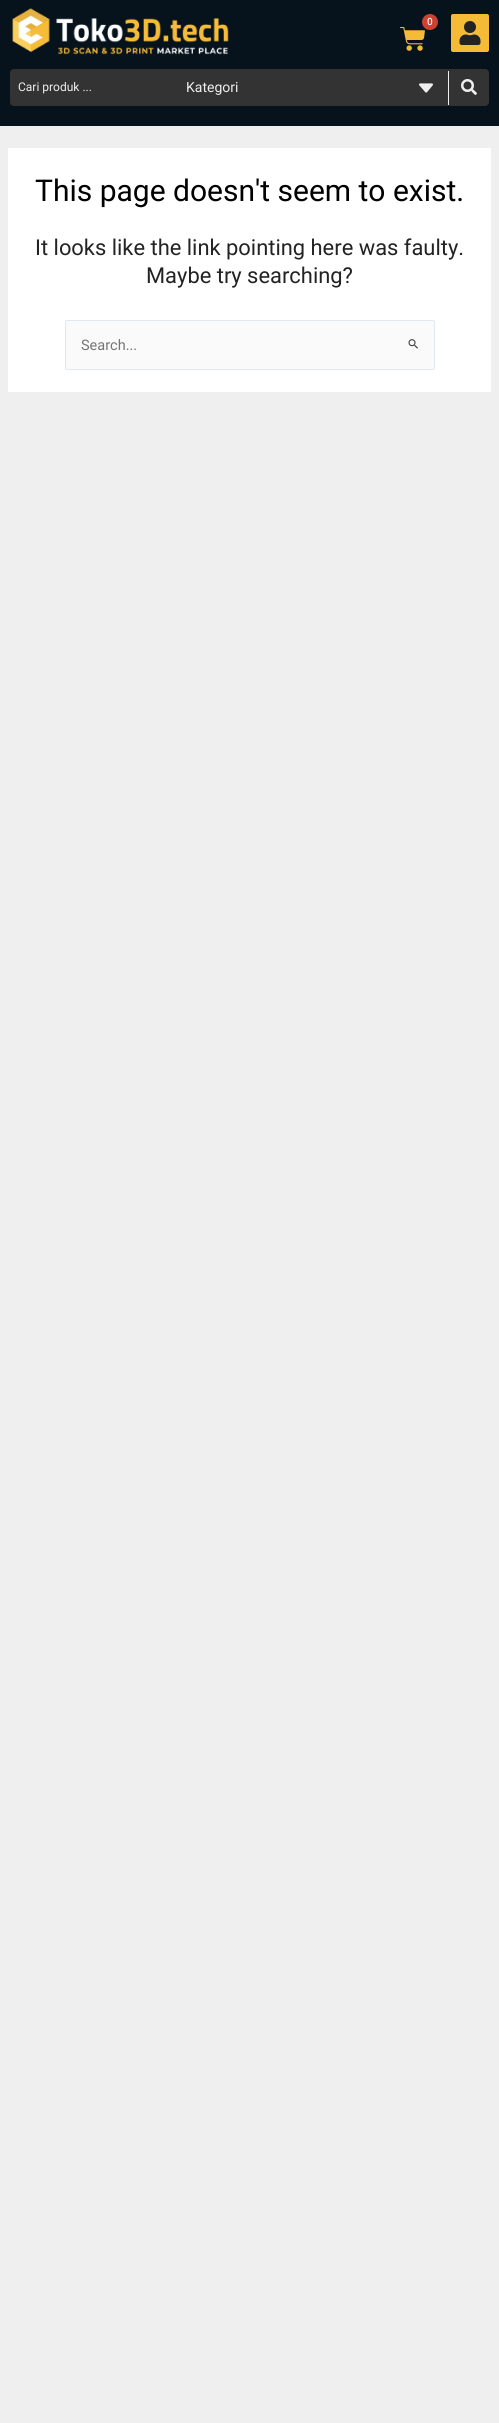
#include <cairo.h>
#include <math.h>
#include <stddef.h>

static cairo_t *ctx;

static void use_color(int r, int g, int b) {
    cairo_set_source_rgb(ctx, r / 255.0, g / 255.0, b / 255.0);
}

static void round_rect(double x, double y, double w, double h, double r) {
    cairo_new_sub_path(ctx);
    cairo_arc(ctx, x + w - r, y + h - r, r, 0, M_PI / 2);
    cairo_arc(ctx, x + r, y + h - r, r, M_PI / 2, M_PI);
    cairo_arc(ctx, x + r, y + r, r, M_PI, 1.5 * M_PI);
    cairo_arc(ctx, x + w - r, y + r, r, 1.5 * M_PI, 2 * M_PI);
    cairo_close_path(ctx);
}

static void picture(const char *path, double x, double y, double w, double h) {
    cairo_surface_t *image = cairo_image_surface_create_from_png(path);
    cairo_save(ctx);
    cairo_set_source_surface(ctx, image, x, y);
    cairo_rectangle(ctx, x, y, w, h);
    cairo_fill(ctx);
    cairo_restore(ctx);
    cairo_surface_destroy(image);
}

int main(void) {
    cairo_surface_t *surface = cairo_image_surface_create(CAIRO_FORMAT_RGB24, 499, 2423);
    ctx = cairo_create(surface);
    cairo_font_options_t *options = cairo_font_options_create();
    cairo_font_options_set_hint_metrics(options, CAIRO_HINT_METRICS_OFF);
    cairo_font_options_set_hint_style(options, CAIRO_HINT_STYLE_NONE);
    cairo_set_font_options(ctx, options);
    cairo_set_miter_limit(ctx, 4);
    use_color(239, 239, 239);
    cairo_paint(ctx);
    use_color(7, 19, 28);
    cairo_rectangle(ctx, 0, 0, 499, 126);
    cairo_fill(ctx);
    picture("img1.png", 12, 8, 217, 47);
    picture("img2.png", 400, 27, 25, 24);
    use_color(204, 66, 48);
    cairo_arc(ctx, 430, 22, 8, 0, 2 * M_PI);
    cairo_fill(ctx);
    cairo_select_font_face(ctx, "Roboto Medium", CAIRO_FONT_SLANT_NORMAL, CAIRO_FONT_WEIGHT_NORMAL);
    cairo_set_font_size(ctx, 10);
    use_color(239, 239, 239);
    cairo_move_to(ctx, 427, 25);
    cairo_show_text(ctx, "0");
    use_color(245, 187, 54);
    round_rect(451, 14, 38, 38, 2);
    cairo_fill(ctx);
    picture("img3.png", 459, 21, 22, 24);
    use_color(51, 51, 51);
    round_rect(10, 69, 479, 37, 4);
    cairo_fill(ctx);
    cairo_select_font_face(ctx, "Roboto", CAIRO_FONT_SLANT_NORMAL, CAIRO_FONT_WEIGHT_NORMAL);
    cairo_set_font_size(ctx, 12);
    use_color(239, 239, 239);
    cairo_move_to(ctx, 18, 91);
    cairo_show_text(ctx, "Cari produk ...");
    cairo_set_font_size(ctx, 14);
    cairo_move_to(ctx, 186, 92);
    cairo_show_text(ctx, "Kategori");
    picture("img4.png", 419, 83, 14, 10);
    cairo_rectangle(ctx, 448, 71, 1, 34);
    cairo_fill(ctx);
    picture("img5.png", 461, 79, 16, 16);
    use_color(255, 255, 255);
    cairo_rectangle(ctx, 8, 148, 483, 244);
    cairo_fill(ctx);
    cairo_set_font_size(ctx, 30);
    use_color(0, 0, 0);
    cairo_move_to(ctx, 35, 201);
    cairo_show_text(ctx, "This page doesn't seem to exist.");
    cairo_set_font_size(ctx, 21.9);
    use_color(35, 35, 35);
    cairo_move_to(ctx, 35, 255);
    cairo_show_text(ctx, "It looks like the link pointing here was faulty.");
    cairo_move_to(ctx, 146, 283);
    cairo_show_text(ctx, "Maybe try searching?");
    use_color(250, 250, 250);
    round_rect(65.5, 320.5, 369, 49, 1.5);
    cairo_fill_preserve(ctx);
    use_color(226, 232, 240);
    cairo_set_line_width(ctx, 1);
    cairo_stroke(ctx);
    cairo_set_font_size(ctx, 14.5);
    use_color(117, 117, 117);
    cairo_move_to(ctx, 81, 350);
    cairo_show_text(ctx, "Search...");
    picture("img6.png", 408, 339, 10, 10);
    cairo_surface_write_to_png(surface, "result.png");
    cairo_font_options_destroy(options);
    cairo_destroy(ctx);
    cairo_surface_destroy(surface);
    return 0;
}
